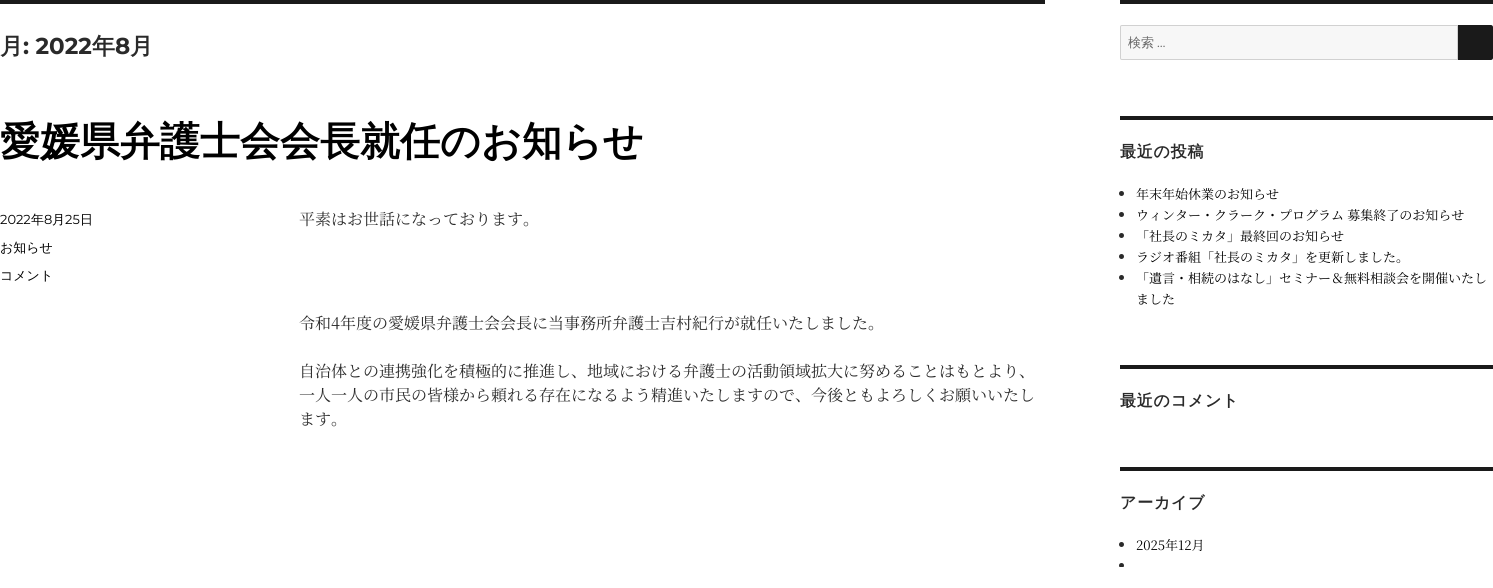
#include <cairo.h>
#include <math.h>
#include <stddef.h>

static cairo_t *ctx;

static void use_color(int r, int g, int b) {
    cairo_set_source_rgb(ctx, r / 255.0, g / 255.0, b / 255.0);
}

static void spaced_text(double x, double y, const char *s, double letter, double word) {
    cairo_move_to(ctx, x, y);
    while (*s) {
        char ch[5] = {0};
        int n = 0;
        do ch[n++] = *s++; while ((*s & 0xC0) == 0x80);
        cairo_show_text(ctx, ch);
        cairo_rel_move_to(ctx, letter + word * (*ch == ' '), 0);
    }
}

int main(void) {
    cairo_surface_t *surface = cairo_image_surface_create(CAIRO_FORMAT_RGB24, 1493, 588);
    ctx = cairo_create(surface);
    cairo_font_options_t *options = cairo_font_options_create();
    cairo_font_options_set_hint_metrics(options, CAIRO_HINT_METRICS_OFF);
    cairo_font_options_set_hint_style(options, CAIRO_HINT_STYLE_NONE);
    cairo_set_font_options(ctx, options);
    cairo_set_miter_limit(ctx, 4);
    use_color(255, 255, 255);
    cairo_paint(ctx);
    use_color(26, 26, 26);
    cairo_rectangle(ctx, 0, 0, 1045, 4);
    cairo_fill(ctx);
    cairo_select_font_face(ctx, "WenQuanYi Zen Hei", CAIRO_FONT_SLANT_NORMAL, CAIRO_FONT_WEIGHT_BOLD);
    cairo_set_font_size(ctx, 23);
    use_color(42, 42, 42);
    cairo_move_to(ctx, 0, 54);
    cairo_show_text(ctx, "月");
    cairo_select_font_face(ctx, "Montserrat", CAIRO_FONT_SLANT_NORMAL, CAIRO_FONT_WEIGHT_BOLD);
    cairo_move_to(ctx, 23, 54);
    cairo_show_text(ctx, ": 2022");
    cairo_select_font_face(ctx, "WenQuanYi Zen Hei", CAIRO_FONT_SLANT_NORMAL, CAIRO_FONT_WEIGHT_BOLD);
    cairo_move_to(ctx, 92, 54);
    cairo_show_text(ctx, "年");
    cairo_select_font_face(ctx, "Montserrat", CAIRO_FONT_SLANT_NORMAL, CAIRO_FONT_WEIGHT_BOLD);
    cairo_move_to(ctx, 115, 54);
    cairo_show_text(ctx, "8");
    cairo_select_font_face(ctx, "WenQuanYi Zen Hei", CAIRO_FONT_SLANT_NORMAL, CAIRO_FONT_WEIGHT_BOLD);
    cairo_move_to(ctx, 130, 54);
    cairo_show_text(ctx, "月");
    cairo_set_font_size(ctx, 40);
    use_color(0, 0, 0);
    cairo_move_to(ctx, 0, 155);
    cairo_show_text(ctx, "愛媛県弁護士会会長就任のお知らせ");
    cairo_select_font_face(ctx, "Montserrat", CAIRO_FONT_SLANT_NORMAL, CAIRO_FONT_WEIGHT_NORMAL);
    cairo_set_font_size(ctx, 13);
    cairo_move_to(ctx, 0, 224);
    cairo_show_text(ctx, "2022");
    cairo_select_font_face(ctx, "WenQuanYi Zen Hei Medium", CAIRO_FONT_SLANT_NORMAL, CAIRO_FONT_WEIGHT_NORMAL);
    cairo_move_to(ctx, 31, 224);
    cairo_show_text(ctx, "年");
    cairo_select_font_face(ctx, "Montserrat", CAIRO_FONT_SLANT_NORMAL, CAIRO_FONT_WEIGHT_NORMAL);
    cairo_move_to(ctx, 44, 224);
    cairo_show_text(ctx, "8");
    cairo_select_font_face(ctx, "WenQuanYi Zen Hei Medium", CAIRO_FONT_SLANT_NORMAL, CAIRO_FONT_WEIGHT_NORMAL);
    cairo_move_to(ctx, 52, 224);
    cairo_show_text(ctx, "月");
    cairo_select_font_face(ctx, "Montserrat", CAIRO_FONT_SLANT_NORMAL, CAIRO_FONT_WEIGHT_NORMAL);
    cairo_move_to(ctx, 65, 224);
    cairo_show_text(ctx, "25");
    cairo_select_font_face(ctx, "WenQuanYi Zen Hei Medium", CAIRO_FONT_SLANT_NORMAL, CAIRO_FONT_WEIGHT_NORMAL);
    cairo_move_to(ctx, 80, 224);
    cairo_show_text(ctx, "日");
    cairo_move_to(ctx, 0, 252);
    cairo_show_text(ctx, "お知らせ");
    cairo_move_to(ctx, 0, 280);
    cairo_show_text(ctx, "コメント");
    cairo_select_font_face(ctx, "Noto Serif JP ExtraLight", CAIRO_FONT_SLANT_NORMAL, CAIRO_FONT_WEIGHT_NORMAL);
    cairo_set_font_size(ctx, 16);
    use_color(42, 42, 42);
    cairo_move_to(ctx, 299, 225);
    cairo_show_text(ctx, "平素はお世話になっております。");
    cairo_move_to(ctx, 299, 329);
    cairo_show_text(ctx, "令和4年度の愛媛県弁護士会会長に当事務所弁護士吉村紀行が就任いたしました。");
    cairo_move_to(ctx, 299, 377);
    cairo_show_text(ctx, "自治体との連携強化を積極的に推進し、地域における弁護士の活動領域拡大に努めることはもとより、");
    cairo_move_to(ctx, 299, 401);
    cairo_show_text(ctx, "一人一人の市民の皆様から頼れる存在になるよう精進いたしますので、今後ともよろしくお願いいたし");
    cairo_move_to(ctx, 299, 425);
    cairo_show_text(ctx, "ます。");
    use_color(26, 26, 26);
    cairo_rectangle(ctx, 1120, 0, 373, 4);
    cairo_fill(ctx);
    use_color(247, 247, 247);
    cairo_new_path(ctx);
    cairo_move_to(ctx, 1122, 25.5);
    cairo_line_to(ctx, 1457.5, 25.5);
    cairo_line_to(ctx, 1457.5, 59.5);
    cairo_line_to(ctx, 1122, 59.5);
    cairo_curve_to(ctx, 1121, 59.5, 1120.5, 59, 1120.5, 58);
    cairo_line_to(ctx, 1120.5, 27);
    cairo_curve_to(ctx, 1120.5, 26, 1121, 25.5, 1122, 25.5);
    cairo_close_path(ctx);
    cairo_fill_preserve(ctx);
    use_color(209, 209, 209);
    cairo_set_line_width(ctx, 1);
    cairo_stroke(ctx);
    cairo_select_font_face(ctx, "WenQuanYi Zen Hei Medium", CAIRO_FONT_SLANT_NORMAL, CAIRO_FONT_WEIGHT_NORMAL);
    cairo_set_font_size(ctx, 13);
    use_color(104, 104, 104);
    cairo_move_to(ctx, 1128, 47);
    cairo_show_text(ctx, "検索");
    cairo_select_font_face(ctx, "Montserrat", CAIRO_FONT_SLANT_NORMAL, CAIRO_FONT_WEIGHT_NORMAL);
    cairo_move_to(ctx, 1157, 47);
    cairo_show_text(ctx, "…");
    use_color(26, 26, 26);
    cairo_new_path(ctx);
    cairo_move_to(ctx, 1458, 25);
    cairo_line_to(ctx, 1491, 25);
    cairo_curve_to(ctx, 1492, 25, 1493, 26, 1493, 27);
    cairo_line_to(ctx, 1493, 58);
    cairo_curve_to(ctx, 1493, 59, 1492, 60, 1491, 60);
    cairo_line_to(ctx, 1458, 60);
    cairo_close_path(ctx);
    cairo_fill(ctx);
    cairo_rectangle(ctx, 1120, 116, 373, 4);
    cairo_fill(ctx);
    cairo_select_font_face(ctx, "WenQuanYi Zen Hei", CAIRO_FONT_SLANT_NORMAL, CAIRO_FONT_WEIGHT_BOLD);
    cairo_set_font_size(ctx, 16);
    use_color(42, 42, 42);
    spaced_text(1120, 157, "最近の投稿", 0.75, 0);
    cairo_new_path(ctx);
    cairo_arc(ctx, 1121.5, 193.5, 2.5, 0, 2 * M_PI);
    cairo_fill(ctx);
    cairo_select_font_face(ctx, "Noto Serif JP ExtraLight", CAIRO_FONT_SLANT_NORMAL, CAIRO_FONT_WEIGHT_NORMAL);
    cairo_set_font_size(ctx, 13);
    use_color(0, 0, 0);
    cairo_move_to(ctx, 1136, 199);
    cairo_show_text(ctx, "年末年始休業のお知らせ");
    use_color(42, 42, 42);
    cairo_new_path(ctx);
    cairo_arc(ctx, 1121.5, 214.5, 2.5, 0, 2 * M_PI);
    cairo_fill(ctx);
    use_color(0, 0, 0);
    cairo_move_to(ctx, 1136, 220);
    cairo_show_text(ctx, "ウィンター・クラーク・プログラム 募集終了のお知らせ");
    use_color(42, 42, 42);
    cairo_new_path(ctx);
    cairo_arc(ctx, 1121.5, 235.5, 2.5, 0, 2 * M_PI);
    cairo_fill(ctx);
    use_color(0, 0, 0);
    cairo_move_to(ctx, 1136, 241);
    cairo_show_text(ctx, "「社長のミカタ」最終回のお知らせ");
    use_color(42, 42, 42);
    cairo_new_path(ctx);
    cairo_arc(ctx, 1121.5, 256.5, 2.5, 0, 2 * M_PI);
    cairo_fill(ctx);
    use_color(0, 0, 0);
    cairo_move_to(ctx, 1136, 262);
    cairo_show_text(ctx, "ラジオ番組「社長のミカタ」を更新しました。");
    use_color(42, 42, 42);
    cairo_new_path(ctx);
    cairo_arc(ctx, 1121.5, 277.5, 2.5, 0, 2 * M_PI);
    cairo_fill(ctx);
    use_color(0, 0, 0);
    cairo_move_to(ctx, 1136, 283);
    cairo_show_text(ctx, "「遺言・相続のはなし」セミナー＆無料相談会を開催いたし");
    cairo_move_to(ctx, 1136, 304);
    cairo_show_text(ctx, "ました");
    use_color(26, 26, 26);
    cairo_rectangle(ctx, 1120, 365, 373, 4);
    cairo_fill(ctx);
    cairo_select_font_face(ctx, "WenQuanYi Zen Hei", CAIRO_FONT_SLANT_NORMAL, CAIRO_FONT_WEIGHT_BOLD);
    cairo_set_font_size(ctx, 16);
    use_color(42, 42, 42);
    spaced_text(1120, 406, "最近のコメント", 0.75, 0);
    use_color(26, 26, 26);
    cairo_rectangle(ctx, 1120, 467, 373, 4);
    cairo_fill(ctx);
    use_color(42, 42, 42);
    spaced_text(1120, 508, "アーカイブ", 0.75, 0);
    cairo_new_path(ctx);
    cairo_arc(ctx, 1121.5, 544.5, 2.5, 0, 2 * M_PI);
    cairo_fill(ctx);
    cairo_select_font_face(ctx, "Noto Serif JP ExtraLight", CAIRO_FONT_SLANT_NORMAL, CAIRO_FONT_WEIGHT_NORMAL);
    cairo_set_font_size(ctx, 13);
    use_color(0, 0, 0);
    cairo_move_to(ctx, 1136, 550);
    cairo_show_text(ctx, "2025年12月");
    use_color(42, 42, 42);
    cairo_new_path(ctx);
    cairo_arc(ctx, 1121.5, 565.5, 2.5, 0, 2 * M_PI);
    cairo_fill(ctx);
    use_color(255, 255, 255);
    cairo_rectangle(ctx, 1119, 567, 5, 1);
    cairo_fill(ctx);
    cairo_surface_write_to_png(surface, "result.png");
    cairo_font_options_destroy(options);
    cairo_destroy(ctx);
    cairo_surface_destroy(surface);
    return 0;
}
